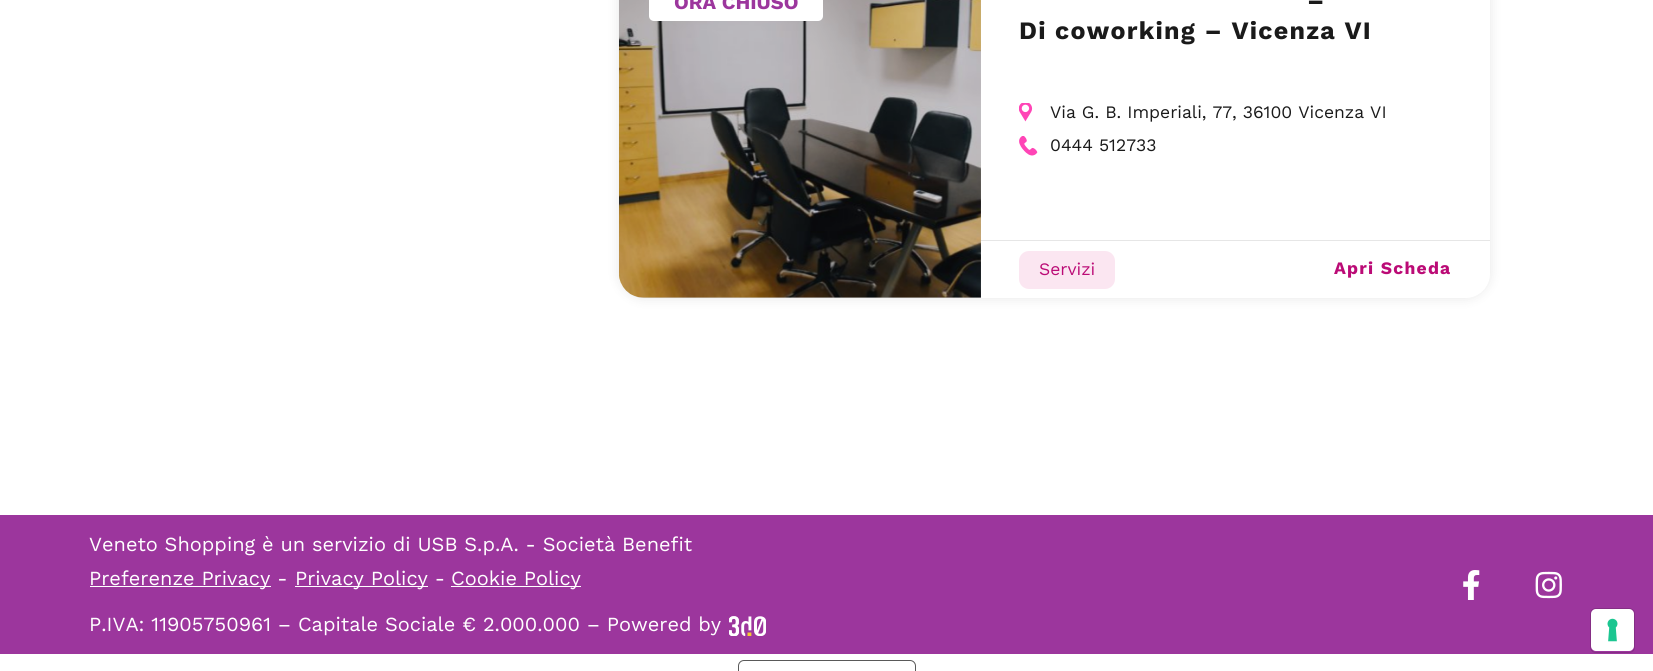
#include <cairo.h>
#include <math.h>
#include <stddef.h>

static cairo_t *ctx;

static void use_color(int r, int g, int b) {
    cairo_set_source_rgb(ctx, r / 255.0, g / 255.0, b / 255.0);
}

static void spaced_text(double x, double y, const char *s, double letter, double word) {
    cairo_move_to(ctx, x, y);
    while (*s) {
        char ch[5] = {0};
        int n = 0;
        do ch[n++] = *s++; while ((*s & 0xC0) == 0x80);
        cairo_show_text(ctx, ch);
        cairo_rel_move_to(ctx, letter + word * (*ch == ' '), 0);
    }
}

static void round_rect(double x, double y, double w, double h, double r) {
    cairo_new_sub_path(ctx);
    cairo_arc(ctx, x + w - r, y + h - r, r, 0, M_PI / 2);
    cairo_arc(ctx, x + r, y + h - r, r, M_PI / 2, M_PI);
    cairo_arc(ctx, x + r, y + r, r, M_PI, 1.5 * M_PI);
    cairo_arc(ctx, x + w - r, y + r, r, 1.5 * M_PI, 2 * M_PI);
    cairo_close_path(ctx);
}

static void shadow(double x, double y, double w, double h, double r, double blur, double alpha) {
    cairo_push_group_with_content(ctx, CAIRO_CONTENT_ALPHA);
    cairo_set_operator(ctx, CAIRO_OPERATOR_SOURCE);
    for (int i = 15; i >= -15 && fmin(w, h) + blur * i / 3 > 0; i -= 2) {
        double e = blur * i / 6;
        cairo_set_source_rgba(ctx, 0, 0, 0, alpha * erfc((i - 1) / 8.5) / 2);
        round_rect(x - e, y - e, w + 2 * e, h + 2 * e, fmax(0, fmin(r + e + blur * .6, fmin(w, h) / 2 + e)));
        cairo_fill(ctx);
    }
    cairo_pattern_t *soft = cairo_pop_group(ctx);
    cairo_mask(ctx, soft);
    cairo_pattern_destroy(soft);
}

static void picture(const char *path, double x, double y, double w, double h) {
    cairo_surface_t *image = cairo_image_surface_create_from_png(path);
    cairo_save(ctx);
    cairo_set_source_surface(ctx, image, x, y);
    cairo_rectangle(ctx, x, y, w, h);
    cairo_fill(ctx);
    cairo_restore(ctx);
    cairo_surface_destroy(image);
}

int main(void) {
    cairo_surface_t *surface = cairo_image_surface_create(CAIRO_FORMAT_RGB24, 1653, 671);
    ctx = cairo_create(surface);
    cairo_font_options_t *options = cairo_font_options_create();
    cairo_font_options_set_hint_metrics(options, CAIRO_HINT_METRICS_OFF);
    cairo_font_options_set_hint_style(options, CAIRO_HINT_STYLE_NONE);
    cairo_set_font_options(ctx, options);
    cairo_set_miter_limit(ctx, 4);
    use_color(255, 255, 255);
    cairo_paint(ctx);
    cairo_save(ctx);
    cairo_set_fill_rule(ctx, CAIRO_FILL_RULE_EVEN_ODD);
    cairo_new_path(ctx);
    cairo_move_to(ctx, 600, 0);
    cairo_line_to(ctx, 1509, 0);
    cairo_line_to(ctx, 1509, 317);
    cairo_line_to(ctx, 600, 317);
    cairo_close_path(ctx);
    cairo_move_to(ctx, 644, -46);
    cairo_line_to(ctx, 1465, -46);
    cairo_curve_to(ctx, 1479, -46, 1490, -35, 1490, -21);
    cairo_line_to(ctx, 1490, 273);
    cairo_curve_to(ctx, 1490, 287, 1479, 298, 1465, 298);
    cairo_line_to(ctx, 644, 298);
    cairo_curve_to(ctx, 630, 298, 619, 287, 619, 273);
    cairo_line_to(ctx, 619, -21);
    cairo_curve_to(ctx, 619, -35, 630, -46, 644, -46);
    cairo_close_path(ctx);
    cairo_clip(ctx);
    use_color(0, 0, 0);
    shadow(619, -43, 871, 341, 25, 6, 0.1);
    cairo_restore(ctx);
    picture("img1.png", 619, 0, 362, 298);
    cairo_set_source_rgba(ctx, 0.153, 0.153, 0.161, 0.2);
    cairo_new_path(ctx);
    cairo_move_to(ctx, 644, -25);
    cairo_line_to(ctx, 981, -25);
    cairo_line_to(ctx, 981, 298);
    cairo_line_to(ctx, 644, 298);
    cairo_curve_to(ctx, 630, 298, 619, 287, 619, 273);
    cairo_line_to(ctx, 619, 0);
    cairo_curve_to(ctx, 619, -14, 630, -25, 644, -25);
    cairo_close_path(ctx);
    cairo_fill(ctx);
    use_color(255, 255, 255);
    round_rect(649, -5, 174, 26, 5);
    cairo_fill(ctx);
    cairo_select_font_face(ctx, "Work Sans", CAIRO_FONT_SLANT_NORMAL, CAIRO_FONT_WEIGHT_BOLD);
    cairo_set_font_size(ctx, 20);
    use_color(156, 54, 157);
    cairo_move_to(ctx, 674, 9);
    cairo_show_text(ctx, "ORA CHIUSO");
    cairo_set_font_size(ctx, 25);
    use_color(26, 26, 26);
    spaced_text(1307, 9, "–", 1.25, 0);
    spaced_text(1019, 39, "Di coworking – Vicenza VI", 1.25, 0);
    picture("img2.png", 1019, 103, 14, 19);
    cairo_select_font_face(ctx, "Work Sans", CAIRO_FONT_SLANT_NORMAL, CAIRO_FONT_WEIGHT_NORMAL);
    cairo_set_font_size(ctx, 17.5);
    cairo_move_to(ctx, 1050, 118);
    cairo_show_text(ctx, "Via G. B. Imperiali, 77, 36100 Vicenza VI");
    picture("img3.png", 1019, 136, 19, 20);
    cairo_move_to(ctx, 1050, 151);
    cairo_show_text(ctx, "0444 512733");
    use_color(230, 230, 230);
    cairo_rectangle(ctx, 981, 240, 509, 1);
    cairo_fill(ctx);
    use_color(251, 230, 241);
    round_rect(1019, 251, 96, 38, 10);
    cairo_fill(ctx);
    use_color(187, 11, 118);
    cairo_move_to(ctx, 1039, 275);
    cairo_show_text(ctx, "Servizi");
    cairo_select_font_face(ctx, "Work Sans", CAIRO_FONT_SLANT_NORMAL, CAIRO_FONT_WEIGHT_BOLD);
    spaced_text(1334, 274, "Apri Scheda", 1.25, 0);
    use_color(156, 54, 157);
    cairo_rectangle(ctx, 0, 515, 1653, 139);
    cairo_fill(ctx);
    cairo_select_font_face(ctx, "Work Sans", CAIRO_FONT_SLANT_NORMAL, CAIRO_FONT_WEIGHT_NORMAL);
    cairo_set_font_size(ctx, 20);
    use_color(255, 255, 255);
    cairo_move_to(ctx, 89, 551);
    cairo_show_text(ctx, "Veneto Shopping è un servizio di USB S.p.A. - Società Benefit");
    cairo_rectangle(ctx, 90, 586, 181, 1);
    cairo_fill(ctx);
    cairo_move_to(ctx, 89, 585);
    cairo_show_text(ctx, "Preferenze Privacy -");
    cairo_rectangle(ctx, 295, 586, 133, 1);
    cairo_fill(ctx);
    cairo_move_to(ctx, 295, 585);
    cairo_show_text(ctx, "Privacy Policy -");
    cairo_rectangle(ctx, 451, 586, 130, 1);
    cairo_fill(ctx);
    cairo_move_to(ctx, 451, 585);
    cairo_show_text(ctx, "Cookie Policy");
    cairo_move_to(ctx, 89, 631);
    cairo_show_text(ctx, "P.IVA: 11905750961 – Capitale Sociale € 2.000.000 – Powered by");
    picture("img4.png", 729, 616, 37, 20);
    picture("img5.png", 1463, 570, 17, 30);
    picture("img6.png", 1535, 571, 27, 28);
    round_rect(1590.5, 608.5, 44, 44, 5.5);
    use_color(133, 46, 133);
    cairo_set_line_width(ctx, 1);
    cairo_stroke(ctx);
    use_color(255, 255, 255);
    round_rect(1591, 609, 43, 42, 5);
    cairo_fill(ctx);
    picture("img7.png", 1607, 618, 11, 24);
    round_rect(738.5, 660.5, 177, 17, 5.5);
    use_color(89, 89, 89);
    cairo_stroke(ctx);
    cairo_surface_write_to_png(surface, "result.png");
    cairo_font_options_destroy(options);
    cairo_destroy(ctx);
    cairo_surface_destroy(surface);
    return 0;
}
